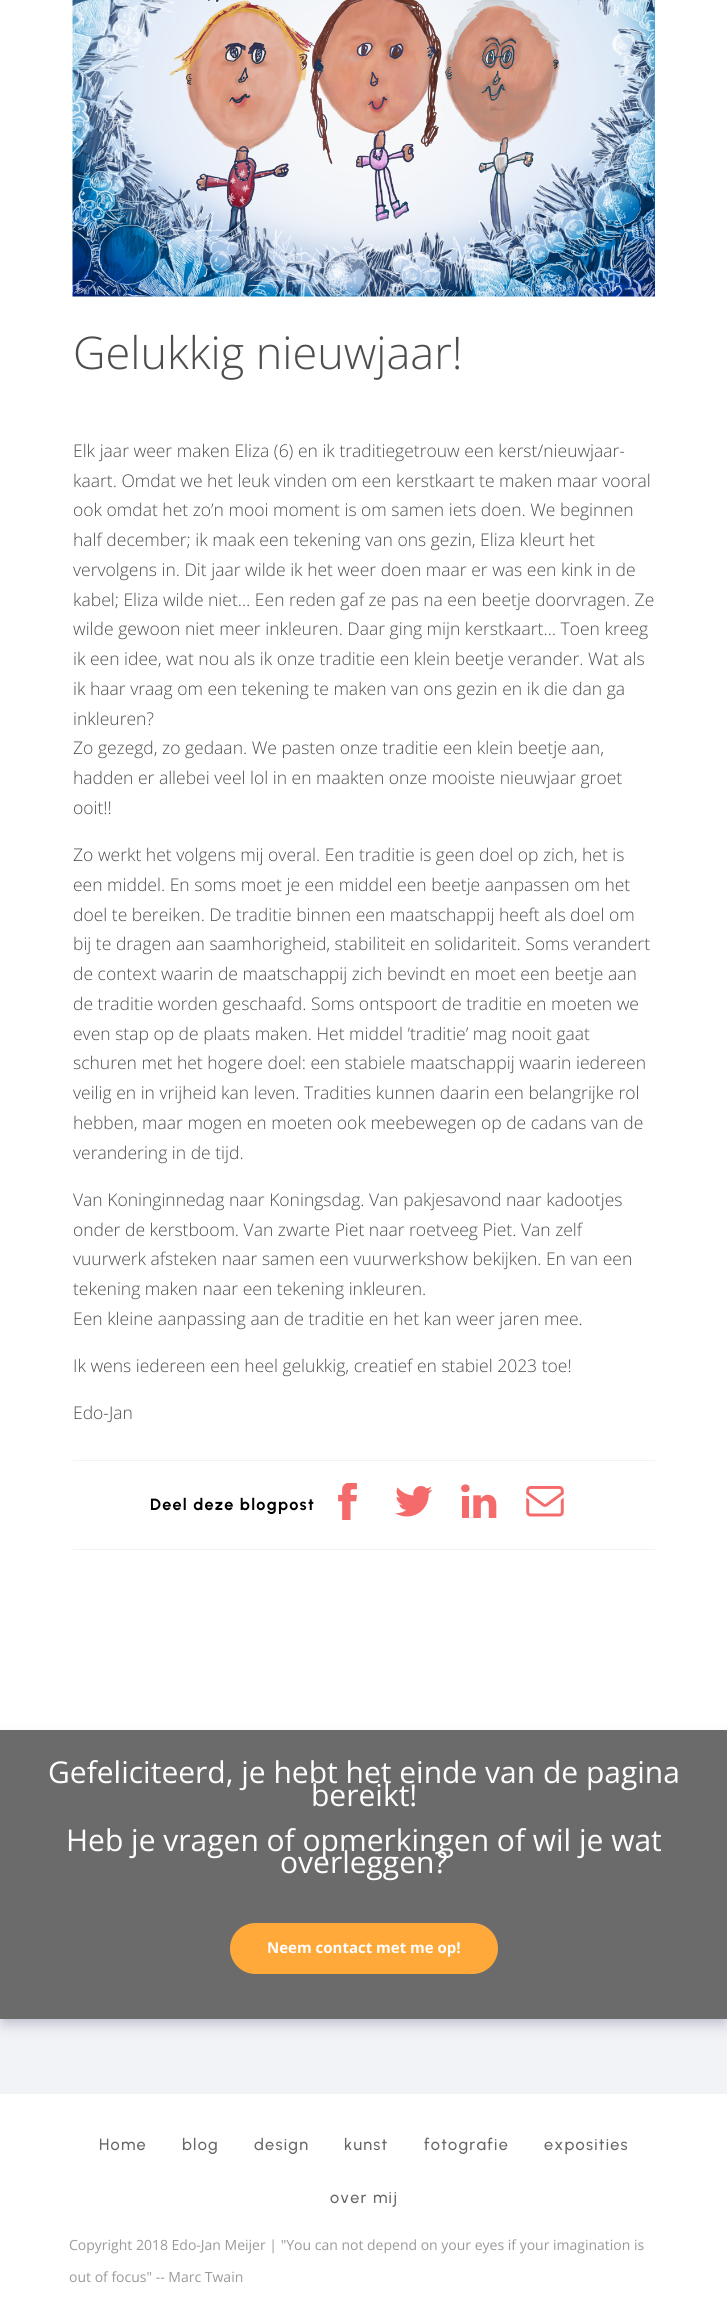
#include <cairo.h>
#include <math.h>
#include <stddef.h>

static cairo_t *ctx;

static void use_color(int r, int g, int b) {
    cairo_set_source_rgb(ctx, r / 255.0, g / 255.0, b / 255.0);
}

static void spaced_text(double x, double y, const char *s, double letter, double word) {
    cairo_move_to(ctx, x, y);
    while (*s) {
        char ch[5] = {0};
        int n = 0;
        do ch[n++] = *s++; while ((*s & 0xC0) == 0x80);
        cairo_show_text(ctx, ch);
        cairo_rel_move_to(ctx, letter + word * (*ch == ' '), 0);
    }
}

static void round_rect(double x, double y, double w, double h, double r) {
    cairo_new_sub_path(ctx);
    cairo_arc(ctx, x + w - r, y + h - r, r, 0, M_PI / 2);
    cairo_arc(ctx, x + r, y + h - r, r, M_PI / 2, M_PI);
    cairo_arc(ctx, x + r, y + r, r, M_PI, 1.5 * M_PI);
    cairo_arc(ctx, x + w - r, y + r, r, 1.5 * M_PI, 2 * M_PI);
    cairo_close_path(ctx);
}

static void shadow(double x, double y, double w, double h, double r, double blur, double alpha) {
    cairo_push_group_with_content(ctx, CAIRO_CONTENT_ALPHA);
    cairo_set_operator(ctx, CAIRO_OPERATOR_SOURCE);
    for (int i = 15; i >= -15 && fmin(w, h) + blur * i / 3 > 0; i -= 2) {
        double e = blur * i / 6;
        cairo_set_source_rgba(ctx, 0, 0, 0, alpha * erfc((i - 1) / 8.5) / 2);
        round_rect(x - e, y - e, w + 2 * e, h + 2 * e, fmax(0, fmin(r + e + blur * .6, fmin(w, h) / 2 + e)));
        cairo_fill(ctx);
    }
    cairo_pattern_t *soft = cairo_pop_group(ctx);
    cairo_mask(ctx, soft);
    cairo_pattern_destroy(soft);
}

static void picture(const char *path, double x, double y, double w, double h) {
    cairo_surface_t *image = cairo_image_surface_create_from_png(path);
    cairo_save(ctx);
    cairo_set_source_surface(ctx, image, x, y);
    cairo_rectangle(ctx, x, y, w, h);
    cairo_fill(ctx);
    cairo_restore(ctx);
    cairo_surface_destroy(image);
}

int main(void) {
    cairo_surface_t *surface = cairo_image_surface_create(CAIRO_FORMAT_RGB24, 727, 2316);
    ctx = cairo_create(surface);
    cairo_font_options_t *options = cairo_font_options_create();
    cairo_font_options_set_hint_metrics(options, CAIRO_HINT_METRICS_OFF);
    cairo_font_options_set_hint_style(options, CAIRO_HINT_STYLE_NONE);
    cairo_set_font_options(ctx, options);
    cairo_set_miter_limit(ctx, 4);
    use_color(242, 243, 246);
    cairo_paint(ctx);
    use_color(255, 255, 255);
    cairo_rectangle(ctx, 0, 0, 727, 1730);
    cairo_fill(ctx);
    picture("img1.png", 72, 0, 583, 297);
    cairo_select_font_face(ctx, "Open Sans Light", CAIRO_FONT_SLANT_NORMAL, CAIRO_FONT_WEIGHT_NORMAL);
    cairo_set_font_size(ctx, 45);
    use_color(77, 77, 77);
    cairo_move_to(ctx, 73, 369);
    cairo_show_text(ctx, "Gelukkig nieuwjaar!");
    cairo_set_font_size(ctx, 17.5);
    cairo_move_to(ctx, 73, 457);
    cairo_show_text(ctx, "Elk jaar weer maken Eliza (6) en ik traditiegetrouw een kerst/nieuwjaar-");
    cairo_move_to(ctx, 73, 487);
    cairo_show_text(ctx, "kaart. Omdat we het leuk vinden om een kerstkaart te maken maar vooral");
    cairo_move_to(ctx, 73, 516);
    cairo_show_text(ctx, "ook omdat het zo’n mooi moment is om samen iets doen. We beginnen");
    cairo_move_to(ctx, 73, 546);
    cairo_show_text(ctx, "half december; ik maak een tekening van ons gezin, Eliza kleurt het");
    cairo_move_to(ctx, 73, 576);
    cairo_show_text(ctx, "vervolgens in. Dit jaar wilde ik het weer doen maar er was een kink in de");
    cairo_move_to(ctx, 73, 606);
    cairo_show_text(ctx, "kabel; Eliza wilde niet… Een reden gaf ze pas na een beetje doorvragen. Ze");
    cairo_move_to(ctx, 73, 635);
    cairo_show_text(ctx, "wilde gewoon niet meer inkleuren. Daar ging mijn kerstkaart… Toen kreeg");
    cairo_move_to(ctx, 73, 665);
    cairo_show_text(ctx, "ik een idee, wat nou als ik onze traditie een klein beetje verander. Wat als");
    cairo_move_to(ctx, 73, 695);
    cairo_show_text(ctx, "ik haar vraag om een tekening te maken van ons gezin en ik die dan ga");
    cairo_move_to(ctx, 73, 725);
    cairo_show_text(ctx, "inkleuren?");
    cairo_move_to(ctx, 73, 754);
    cairo_show_text(ctx, "Zo gezegd, zo gedaan. We pasten onze traditie een klein beetje aan,");
    cairo_move_to(ctx, 73, 784);
    cairo_show_text(ctx, "hadden er allebei veel lol in en maakten onze mooiste nieuwjaar groet");
    cairo_move_to(ctx, 73, 814);
    cairo_show_text(ctx, "ooit!!");
    cairo_move_to(ctx, 73, 861);
    cairo_show_text(ctx, "Zo werkt het volgens mij overal. Een traditie is geen doel op zich, het is");
    cairo_move_to(ctx, 73, 891);
    cairo_show_text(ctx, "een middel. En soms moet je een middel een beetje aanpassen om het");
    cairo_move_to(ctx, 73, 921);
    cairo_show_text(ctx, "doel te bereiken. De traditie binnen een maatschappij heeft als doel om");
    cairo_move_to(ctx, 73, 950);
    cairo_show_text(ctx, "bij te dragen aan saamhorigheid, stabiliteit en solidariteit. Soms verandert");
    cairo_move_to(ctx, 73, 980);
    cairo_show_text(ctx, "de context waarin de maatschappij zich bevindt en moet een beetje aan");
    cairo_move_to(ctx, 73, 1010);
    cairo_show_text(ctx, "de traditie worden geschaafd. Soms ontspoort de traditie en moeten we");
    cairo_move_to(ctx, 73, 1040);
    cairo_show_text(ctx, "even stap op de plaats maken. Het middel ’traditie’ mag nooit gaat");
    cairo_move_to(ctx, 73, 1069);
    cairo_show_text(ctx, "schuren met het hogere doel: een stabiele maatschappij waarin iedereen");
    cairo_move_to(ctx, 73, 1099);
    cairo_show_text(ctx, "veilig en in vrijheid kan leven. Tradities kunnen daarin een belangrijke rol");
    cairo_move_to(ctx, 73, 1129);
    cairo_show_text(ctx, "hebben, maar mogen en moeten ook meebewegen op de cadans van de");
    cairo_move_to(ctx, 73, 1159);
    cairo_show_text(ctx, "verandering in de tijd.");
    cairo_move_to(ctx, 73, 1206);
    cairo_show_text(ctx, "Van Koninginnedag naar Koningsdag. Van pakjesavond naar kadootjes");
    cairo_move_to(ctx, 73, 1236);
    cairo_show_text(ctx, "onder de kerstboom. Van zwarte Piet naar roetveeg Piet. Van zelf");
    cairo_move_to(ctx, 73, 1265);
    cairo_show_text(ctx, "vuurwerk afsteken naar samen een vuurwerkshow bekijken. En van een");
    cairo_move_to(ctx, 73, 1295);
    cairo_show_text(ctx, "tekening maken naar een tekening inkleuren.");
    cairo_move_to(ctx, 73, 1325);
    cairo_show_text(ctx, "Een kleine aanpassing aan de traditie en het kan weer jaren mee.");
    cairo_move_to(ctx, 73, 1372);
    cairo_show_text(ctx, "Ik wens iedereen een heel gelukkig, creatief en stabiel 2023 toe!");
    cairo_move_to(ctx, 73, 1419);
    cairo_show_text(ctx, "Edo-Jan");
    use_color(242, 242, 242);
    cairo_rectangle(ctx, 73, 1460, 582, 1);
    cairo_fill(ctx);
    cairo_rectangle(ctx, 73, 1549, 582, 1);
    cairo_fill(ctx);
    cairo_select_font_face(ctx, "Urbanist", CAIRO_FONT_SLANT_NORMAL, CAIRO_FONT_WEIGHT_BOLD);
    cairo_set_font_size(ctx, 16.25);
    use_color(0, 0, 0);
    spaced_text(150, 1510, "Deel deze blogpost", 1.25, 0);
    picture("img2.png", 338, 1483, 19, 37);
    picture("img3.png", 395, 1486, 38, 31);
    picture("img4.png", 461, 1484, 36, 34);
    picture("img5.png", 526, 1486, 38, 31);
    use_color(0, 0, 0);
    shadow(4, 1738, 720, 281, 0, 4.5, 0.07);
    use_color(50, 50, 93);
    shadow(3, 1740, 722, 284, 0, 7.5, 0.25);
    use_color(107, 107, 107);
    cairo_rectangle(ctx, 0, 1730, 727, 289);
    cairo_fill(ctx);
    cairo_select_font_face(ctx, "Open Sans", CAIRO_FONT_SLANT_NORMAL, CAIRO_FONT_WEIGHT_NORMAL);
    cairo_set_font_size(ctx, 30);
    use_color(255, 255, 255);
    cairo_move_to(ctx, 48, 1783);
    cairo_show_text(ctx, "Gefeliciteerd, je hebt het einde van de pagina");
    cairo_move_to(ctx, 311, 1806);
    cairo_show_text(ctx, "bereikt!");
    cairo_move_to(ctx, 66, 1851);
    cairo_show_text(ctx, "Heb je vragen of opmerkingen of wil je wat");
    cairo_move_to(ctx, 280, 1873);
    cairo_show_text(ctx, "overleggen?");
    use_color(255, 169, 58);
    round_rect(230, 1923, 268, 51, 25.5);
    cairo_fill(ctx);
    cairo_select_font_face(ctx, "Open Sans", CAIRO_FONT_SLANT_NORMAL, CAIRO_FONT_WEIGHT_BOLD);
    cairo_set_font_size(ctx, 15);
    use_color(255, 255, 255);
    cairo_move_to(ctx, 267, 1953);
    cairo_show_text(ctx, "Neem contact met me op!");
    cairo_rectangle(ctx, 0, 2094, 727, 222);
    cairo_fill(ctx);
    cairo_select_font_face(ctx, "Urbanist Medium", CAIRO_FONT_SLANT_NORMAL, CAIRO_FONT_WEIGHT_NORMAL);
    cairo_set_font_size(ctx, 16.25);
    use_color(102, 102, 102);
    spaced_text(99, 2150, "Home", 1.25, 0);
    spaced_text(182, 2150, "blog", 1.25, 0);
    spaced_text(254, 2150, "design", 1.25, 0);
    spaced_text(344, 2150, "kunst", 1.25, 0);
    spaced_text(424, 2150, "fotografie", 1.25, 0);
    spaced_text(544, 2150, "exposities", 1.25, 0);
    spaced_text(330, 2203, "over mij", 1.25, 0);
    cairo_select_font_face(ctx, "Open Sans", CAIRO_FONT_SLANT_NORMAL, CAIRO_FONT_WEIGHT_NORMAL);
    cairo_set_font_size(ctx, 14);
    use_color(154, 154, 154);
    cairo_move_to(ctx, 69, 2250);
    cairo_show_text(ctx, "Copyright 2018 Edo-Jan Meijer | \"You can not depend on your eyes if your imagination is");
    cairo_move_to(ctx, 69, 2282);
    cairo_show_text(ctx, "out of focus\" -- Marc Twain");
    cairo_surface_write_to_png(surface, "result.png");
    cairo_font_options_destroy(options);
    cairo_destroy(ctx);
    cairo_surface_destroy(surface);
    return 0;
}
